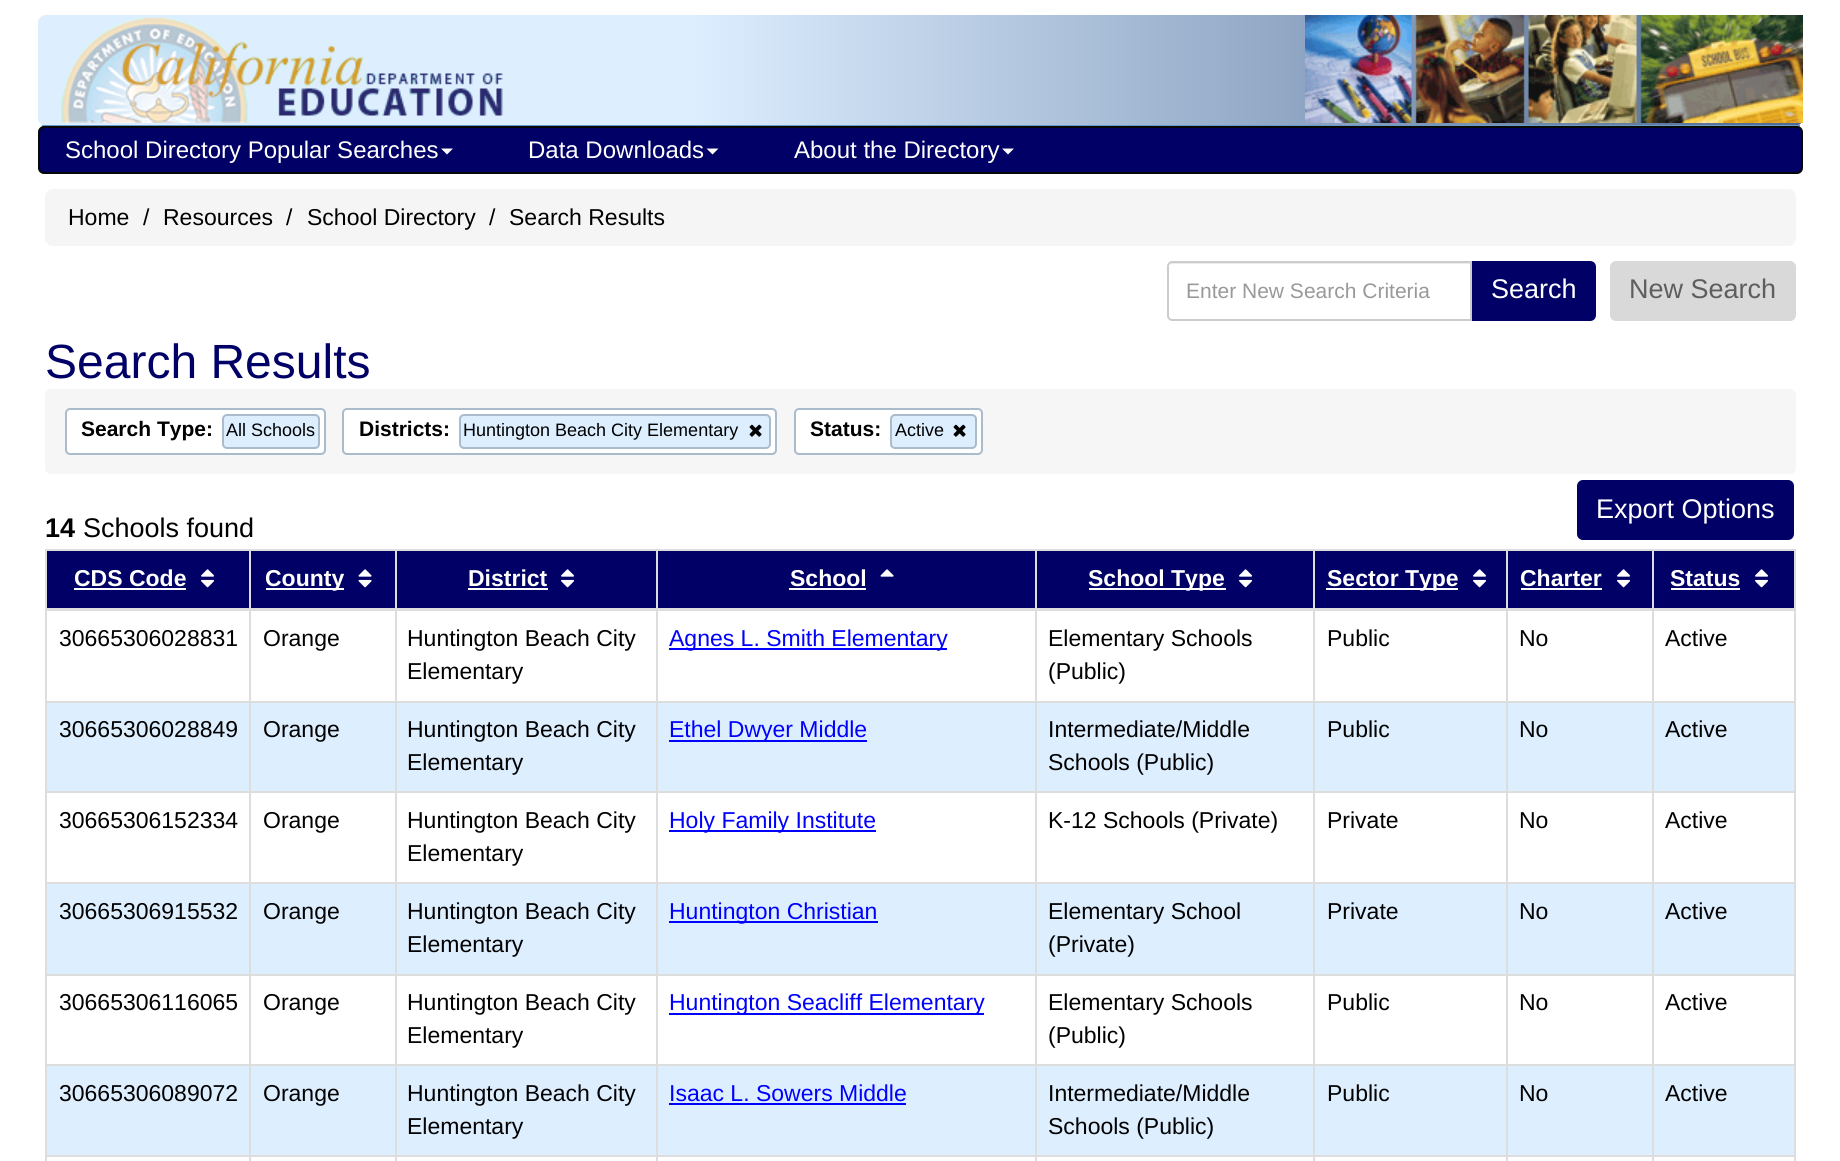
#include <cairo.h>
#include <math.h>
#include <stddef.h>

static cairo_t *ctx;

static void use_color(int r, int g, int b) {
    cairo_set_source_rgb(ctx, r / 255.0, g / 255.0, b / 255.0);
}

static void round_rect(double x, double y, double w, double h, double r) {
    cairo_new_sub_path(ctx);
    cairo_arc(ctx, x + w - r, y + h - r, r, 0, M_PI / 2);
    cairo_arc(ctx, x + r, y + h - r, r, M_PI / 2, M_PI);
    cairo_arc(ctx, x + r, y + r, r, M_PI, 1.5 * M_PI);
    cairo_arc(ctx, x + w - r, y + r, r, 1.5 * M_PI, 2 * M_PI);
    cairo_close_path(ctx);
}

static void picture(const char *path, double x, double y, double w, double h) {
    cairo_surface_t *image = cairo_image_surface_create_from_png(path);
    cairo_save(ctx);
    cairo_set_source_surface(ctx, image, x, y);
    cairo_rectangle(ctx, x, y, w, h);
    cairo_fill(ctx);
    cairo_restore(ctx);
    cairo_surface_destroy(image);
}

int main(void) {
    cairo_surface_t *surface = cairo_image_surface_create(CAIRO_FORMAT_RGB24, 1840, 1161);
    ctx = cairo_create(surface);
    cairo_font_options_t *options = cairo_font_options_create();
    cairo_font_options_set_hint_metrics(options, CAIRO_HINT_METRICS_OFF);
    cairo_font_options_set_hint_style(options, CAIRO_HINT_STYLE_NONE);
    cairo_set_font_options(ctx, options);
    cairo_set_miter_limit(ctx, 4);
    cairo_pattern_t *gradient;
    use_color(255, 255, 255);
    cairo_paint(ctx);
    gradient = cairo_pattern_create_linear(38, 70, 1803, 70);
    cairo_pattern_add_color_stop_rgba(gradient, 0.01, 0.867, 0.933, 1, 1);
    cairo_pattern_add_color_stop_rgba(gradient, 0.37, 0.867, 0.933, 1, 1);
    cairo_pattern_add_color_stop_rgba(gradient, 1, 0.31, 0.416, 0.573, 1);
    cairo_set_source(ctx, gradient);
    cairo_pattern_destroy(gradient);
    round_rect(38, 15, 1765, 111, 8);
    cairo_fill(ctx);
    use_color(102, 153, 204);
    cairo_rectangle(ctx, 42, 125, 1758, 2);
    cairo_fill(ctx);
    picture("img1.png", 61, 18, 442, 105);
    picture("img2.png", 1305, 15, 498, 108);
    use_color(0, 0, 102);
    round_rect(39, 127, 1763, 46, 5);
    cairo_fill_preserve(ctx);
    use_color(8, 8, 8);
    cairo_stroke(ctx);
    cairo_select_font_face(ctx, "Liberation Sans", CAIRO_FONT_SLANT_NORMAL, CAIRO_FONT_WEIGHT_NORMAL);
    cairo_set_font_size(ctx, 24);
    use_color(255, 255, 255);
    cairo_move_to(ctx, 65, 158);
    cairo_show_text(ctx, "School Directory Popular Searches");
    cairo_new_path(ctx);
    cairo_move_to(ctx, 441, 148.5);
    cairo_line_to(ctx, 453, 148.5);
    cairo_line_to(ctx, 447, 154.5);
    cairo_close_path(ctx);
    cairo_fill(ctx);
    cairo_move_to(ctx, 528, 158);
    cairo_show_text(ctx, "Data Downloads");
    cairo_new_path(ctx);
    cairo_move_to(ctx, 706.5, 148.5);
    cairo_line_to(ctx, 718.5, 148.5);
    cairo_line_to(ctx, 712.5, 154.5);
    cairo_close_path(ctx);
    cairo_fill(ctx);
    cairo_move_to(ctx, 794, 158);
    cairo_show_text(ctx, "About the Directory");
    cairo_new_path(ctx);
    cairo_move_to(ctx, 1002, 148.5);
    cairo_line_to(ctx, 1014, 148.5);
    cairo_line_to(ctx, 1008, 154.5);
    cairo_close_path(ctx);
    cairo_fill(ctx);
    use_color(245, 245, 245);
    round_rect(45, 189, 1751, 57, 8);
    cairo_fill(ctx);
    cairo_set_font_size(ctx, 23);
    use_color(0, 0, 0);
    cairo_move_to(ctx, 68, 225);
    cairo_show_text(ctx, "Home");
    cairo_move_to(ctx, 143, 225);
    cairo_show_text(ctx, "/");
    cairo_move_to(ctx, 163, 225);
    cairo_show_text(ctx, "Resources");
    cairo_move_to(ctx, 286, 225);
    cairo_show_text(ctx, "/");
    cairo_move_to(ctx, 307, 225);
    cairo_show_text(ctx, "School Directory");
    cairo_move_to(ctx, 489, 225);
    cairo_show_text(ctx, "/");
    cairo_move_to(ctx, 509, 225);
    cairo_show_text(ctx, "Search Results");
    use_color(236, 236, 236);
    cairo_new_path(ctx);
    cairo_move_to(ctx, 1172, 264);
    cairo_line_to(ctx, 1470, 264);
    cairo_line_to(ctx, 1470, 263);
    cairo_line_to(ctx, 1172, 263);
    cairo_curve_to(ctx, 1171, 263, 1170, 264, 1169, 265);
    cairo_close_path(ctx);
    cairo_fill(ctx);
    cairo_new_path(ctx);
    cairo_move_to(ctx, 1172, 262);
    cairo_line_to(ctx, 1471, 262);
    cairo_line_to(ctx, 1471, 320);
    cairo_line_to(ctx, 1172, 320);
    cairo_curve_to(ctx, 1170, 320, 1168, 318, 1168, 316);
    cairo_line_to(ctx, 1168, 266);
    cairo_curve_to(ctx, 1168, 264, 1170, 262, 1172, 262);
    cairo_close_path(ctx);
    use_color(204, 204, 204);
    cairo_stroke(ctx);
    cairo_set_font_size(ctx, 21);
    use_color(153, 153, 153);
    cairo_move_to(ctx, 1186, 298);
    cairo_show_text(ctx, "Enter New Search Criteria");
    use_color(0, 0, 102);
    cairo_new_path(ctx);
    cairo_move_to(ctx, 1473, 262);
    cairo_line_to(ctx, 1590, 262);
    cairo_curve_to(ctx, 1593, 262, 1595, 264, 1595, 267);
    cairo_line_to(ctx, 1595, 315);
    cairo_curve_to(ctx, 1595, 318, 1593, 320, 1590, 320);
    cairo_line_to(ctx, 1473, 320);
    cairo_close_path(ctx);
    cairo_fill_preserve(ctx);
    cairo_stroke(ctx);
    cairo_set_font_size(ctx, 27);
    use_color(255, 255, 255);
    cairo_move_to(ctx, 1491, 298);
    cairo_show_text(ctx, "Search");
    use_color(217, 217, 217);
    round_rect(1610, 261, 186, 60, 6);
    cairo_fill(ctx);
    use_color(94, 94, 94);
    cairo_move_to(ctx, 1629, 298);
    cairo_show_text(ctx, "New Search");
    cairo_set_font_size(ctx, 48);
    use_color(0, 0, 102);
    cairo_move_to(ctx, 45, 378);
    cairo_show_text(ctx, "Search Results");
    use_color(246, 246, 246);
    round_rect(45, 389, 1751, 85, 6);
    cairo_fill(ctx);
    use_color(255, 255, 255);
    round_rect(66, 409, 259, 45, 4);
    cairo_fill_preserve(ctx);
    use_color(170, 187, 204);
    cairo_stroke(ctx);
    cairo_select_font_face(ctx, "Liberation Sans", CAIRO_FONT_SLANT_NORMAL, CAIRO_FONT_WEIGHT_BOLD);
    cairo_set_font_size(ctx, 21);
    use_color(0, 0, 0);
    cairo_move_to(ctx, 81, 436);
    cairo_show_text(ctx, "Search Type:");
    use_color(221, 238, 255);
    round_rect(223, 415, 96, 33, 4);
    cairo_fill_preserve(ctx);
    use_color(170, 187, 204);
    cairo_stroke(ctx);
    cairo_select_font_face(ctx, "Liberation Sans", CAIRO_FONT_SLANT_NORMAL, CAIRO_FONT_WEIGHT_NORMAL);
    cairo_set_font_size(ctx, 18);
    use_color(0, 0, 0);
    cairo_move_to(ctx, 226, 436);
    cairo_show_text(ctx, "All Schools");
    use_color(255, 255, 255);
    round_rect(343, 409, 433, 45, 4);
    cairo_fill_preserve(ctx);
    use_color(170, 187, 204);
    cairo_stroke(ctx);
    cairo_select_font_face(ctx, "Liberation Sans", CAIRO_FONT_SLANT_NORMAL, CAIRO_FONT_WEIGHT_BOLD);
    cairo_set_font_size(ctx, 21);
    use_color(0, 0, 0);
    cairo_move_to(ctx, 359, 436);
    cairo_show_text(ctx, "Districts:");
    use_color(221, 238, 255);
    round_rect(460, 415, 310, 33, 4);
    cairo_fill_preserve(ctx);
    use_color(170, 187, 204);
    cairo_stroke(ctx);
    cairo_select_font_face(ctx, "Liberation Sans", CAIRO_FONT_SLANT_NORMAL, CAIRO_FONT_WEIGHT_NORMAL);
    cairo_set_font_size(ctx, 18);
    use_color(0, 0, 0);
    cairo_move_to(ctx, 463, 436);
    cairo_show_text(ctx, "Huntington Beach City Elementary");
    picture("img3.png", 749, 424, 13, 13);
    use_color(255, 255, 255);
    round_rect(795, 409, 187, 45, 4);
    cairo_fill_preserve(ctx);
    use_color(170, 187, 204);
    cairo_stroke(ctx);
    cairo_select_font_face(ctx, "Liberation Sans", CAIRO_FONT_SLANT_NORMAL, CAIRO_FONT_WEIGHT_BOLD);
    cairo_set_font_size(ctx, 21);
    use_color(0, 0, 0);
    cairo_move_to(ctx, 810, 436);
    cairo_show_text(ctx, "Status:");
    use_color(221, 238, 255);
    round_rect(891, 415, 85, 33, 4);
    cairo_fill_preserve(ctx);
    use_color(170, 187, 204);
    cairo_stroke(ctx);
    cairo_select_font_face(ctx, "Liberation Sans", CAIRO_FONT_SLANT_NORMAL, CAIRO_FONT_WEIGHT_NORMAL);
    cairo_set_font_size(ctx, 18);
    use_color(0, 0, 0);
    cairo_move_to(ctx, 895, 436);
    cairo_show_text(ctx, "Active");
    picture("img3.png", 953, 424, 13, 13);
    use_color(0, 0, 102);
    round_rect(1578, 481, 215, 58, 5);
    cairo_fill_preserve(ctx);
    cairo_stroke(ctx);
    cairo_set_font_size(ctx, 27);
    use_color(255, 255, 255);
    cairo_move_to(ctx, 1596, 518);
    cairo_show_text(ctx, "Export Options");
    cairo_select_font_face(ctx, "Liberation Sans", CAIRO_FONT_SLANT_NORMAL, CAIRO_FONT_WEIGHT_BOLD);
    use_color(0, 0, 0);
    cairo_move_to(ctx, 45, 537);
    cairo_show_text(ctx, "14");
    cairo_select_font_face(ctx, "Liberation Sans", CAIRO_FONT_SLANT_NORMAL, CAIRO_FONT_WEIGHT_NORMAL);
    cairo_move_to(ctx, 83, 537);
    cairo_show_text(ctx, "Schools found");
    use_color(221, 221, 221);
    cairo_rectangle(ctx, 45, 549, 1751, 2);
    cairo_fill(ctx);
    cairo_rectangle(ctx, 1794, 549, 2, 612);
    cairo_fill(ctx);
    cairo_rectangle(ctx, 45, 549, 2, 612);
    cairo_fill(ctx);
    use_color(0, 0, 102);
    cairo_rectangle(ctx, 47, 551, 202, 57);
    cairo_fill(ctx);
    cairo_select_font_face(ctx, "Liberation Sans", CAIRO_FONT_SLANT_NORMAL, CAIRO_FONT_WEIGHT_BOLD);
    cairo_set_font_size(ctx, 23);
    use_color(255, 255, 255);
    cairo_move_to(ctx, 74, 586);
    cairo_show_text(ctx, "CDS Code");
    cairo_rectangle(ctx, 74, 588, 112, 2);
    cairo_fill(ctx);
    picture("img4.png", 201, 569, 14, 19);
    use_color(0, 0, 102);
    cairo_rectangle(ctx, 251, 551, 144, 57);
    cairo_fill(ctx);
    use_color(255, 255, 255);
    cairo_rectangle(ctx, 266, 588, 78, 2);
    cairo_fill(ctx);
    cairo_move_to(ctx, 265, 586);
    cairo_show_text(ctx, "County");
    picture("img5.png", 358, 569, 14, 19);
    use_color(0, 0, 102);
    cairo_rectangle(ctx, 397, 551, 259, 57);
    cairo_fill(ctx);
    use_color(255, 255, 255);
    cairo_move_to(ctx, 468, 586);
    cairo_show_text(ctx, "District");
    cairo_rectangle(ctx, 468, 588, 80, 2);
    cairo_fill(ctx);
    picture("img4.png", 561, 569, 14, 19);
    use_color(0, 0, 102);
    cairo_rectangle(ctx, 658, 551, 377, 57);
    cairo_fill(ctx);
    use_color(255, 255, 255);
    cairo_move_to(ctx, 790, 586);
    cairo_show_text(ctx, "School");
    cairo_rectangle(ctx, 789, 588, 77, 2);
    cairo_fill(ctx);
    picture("img6.png", 880, 569, 14, 8);
    use_color(0, 0, 102);
    cairo_rectangle(ctx, 1037, 551, 276, 57);
    cairo_fill(ctx);
    use_color(255, 255, 255);
    cairo_rectangle(ctx, 1089, 588, 137, 2);
    cairo_fill(ctx);
    cairo_move_to(ctx, 1088, 586);
    cairo_show_text(ctx, "School Type");
    picture("img4.png", 1239, 569, 14, 19);
    use_color(0, 0, 102);
    cairo_rectangle(ctx, 1315, 551, 191, 57);
    cairo_fill(ctx);
    use_color(255, 255, 255);
    cairo_rectangle(ctx, 1326, 588, 132, 2);
    cairo_fill(ctx);
    cairo_move_to(ctx, 1327, 586);
    cairo_show_text(ctx, "Sector Type");
    picture("img4.png", 1473, 569, 14, 19);
    use_color(0, 0, 102);
    cairo_rectangle(ctx, 1508, 551, 144, 57);
    cairo_fill(ctx);
    use_color(255, 255, 255);
    cairo_move_to(ctx, 1520, 586);
    cairo_show_text(ctx, "Charter");
    cairo_rectangle(ctx, 1521, 588, 81, 2);
    cairo_fill(ctx);
    picture("img4.png", 1617, 569, 14, 19);
    use_color(0, 0, 102);
    cairo_rectangle(ctx, 1654, 551, 140, 57);
    cairo_fill(ctx);
    use_color(221, 221, 221);
    cairo_rectangle(ctx, 1652, 701, 144, 2);
    cairo_fill(ctx);
    use_color(221, 238, 255);
    cairo_rectangle(ctx, 47, 703, 1747, 88);
    cairo_fill(ctx);
    use_color(221, 221, 221);
    cairo_rectangle(ctx, 1652, 791, 144, 2);
    cairo_fill(ctx);
    cairo_rectangle(ctx, 1652, 882, 144, 2);
    cairo_fill(ctx);
    use_color(221, 238, 255);
    cairo_rectangle(ctx, 47, 884, 1747, 90);
    cairo_fill(ctx);
    use_color(221, 221, 221);
    cairo_rectangle(ctx, 1652, 974, 144, 2);
    cairo_fill(ctx);
    cairo_rectangle(ctx, 1652, 1064, 144, 2);
    cairo_fill(ctx);
    use_color(221, 238, 255);
    cairo_rectangle(ctx, 47, 1066, 1747, 89);
    cairo_fill(ctx);
    use_color(221, 221, 221);
    cairo_rectangle(ctx, 1652, 1155, 144, 2);
    cairo_fill(ctx);
    cairo_rectangle(ctx, 1652, 1155, 2, 6);
    cairo_fill(ctx);
    cairo_rectangle(ctx, 1506, 1155, 147, 2);
    cairo_fill(ctx);
    cairo_rectangle(ctx, 1652, 1064, 2, 93);
    cairo_fill(ctx);
    cairo_rectangle(ctx, 1506, 1064, 147, 2);
    cairo_fill(ctx);
    cairo_rectangle(ctx, 1652, 974, 2, 91);
    cairo_fill(ctx);
    cairo_rectangle(ctx, 1506, 974, 147, 2);
    cairo_fill(ctx);
    cairo_rectangle(ctx, 1652, 882, 2, 93);
    cairo_fill(ctx);
    cairo_rectangle(ctx, 1506, 882, 147, 2);
    cairo_fill(ctx);
    cairo_rectangle(ctx, 1652, 791, 2, 93);
    cairo_fill(ctx);
    cairo_rectangle(ctx, 1506, 791, 147, 2);
    cairo_fill(ctx);
    cairo_rectangle(ctx, 1652, 701, 2, 91);
    cairo_fill(ctx);
    cairo_rectangle(ctx, 1506, 701, 147, 2);
    cairo_fill(ctx);
    cairo_rectangle(ctx, 1506, 1155, 2, 6);
    cairo_fill(ctx);
    cairo_rectangle(ctx, 1313, 1155, 195, 2);
    cairo_fill(ctx);
    cairo_rectangle(ctx, 1506, 1064, 2, 93);
    cairo_fill(ctx);
    cairo_rectangle(ctx, 1313, 1064, 195, 2);
    cairo_fill(ctx);
    cairo_rectangle(ctx, 1506, 974, 2, 91);
    cairo_fill(ctx);
    cairo_rectangle(ctx, 1313, 974, 195, 2);
    cairo_fill(ctx);
    cairo_rectangle(ctx, 1506, 882, 2, 93);
    cairo_fill(ctx);
    cairo_rectangle(ctx, 1313, 882, 195, 2);
    cairo_fill(ctx);
    cairo_rectangle(ctx, 1506, 791, 2, 93);
    cairo_fill(ctx);
    cairo_rectangle(ctx, 1313, 791, 195, 2);
    cairo_fill(ctx);
    cairo_rectangle(ctx, 1506, 701, 2, 91);
    cairo_fill(ctx);
    cairo_rectangle(ctx, 1313, 701, 195, 2);
    cairo_fill(ctx);
    cairo_rectangle(ctx, 1313, 1155, 2, 6);
    cairo_fill(ctx);
    cairo_rectangle(ctx, 1035, 1155, 279, 2);
    cairo_fill(ctx);
    cairo_rectangle(ctx, 1313, 1064, 2, 93);
    cairo_fill(ctx);
    cairo_rectangle(ctx, 1035, 1064, 279, 2);
    cairo_fill(ctx);
    cairo_rectangle(ctx, 1313, 974, 2, 91);
    cairo_fill(ctx);
    cairo_rectangle(ctx, 1035, 974, 279, 2);
    cairo_fill(ctx);
    cairo_rectangle(ctx, 1313, 882, 2, 93);
    cairo_fill(ctx);
    cairo_rectangle(ctx, 1035, 882, 279, 2);
    cairo_fill(ctx);
    cairo_rectangle(ctx, 1313, 791, 2, 93);
    cairo_fill(ctx);
    cairo_rectangle(ctx, 1035, 791, 279, 2);
    cairo_fill(ctx);
    cairo_rectangle(ctx, 1313, 701, 2, 91);
    cairo_fill(ctx);
    cairo_rectangle(ctx, 1035, 701, 279, 2);
    cairo_fill(ctx);
    cairo_rectangle(ctx, 1035, 1155, 2, 6);
    cairo_fill(ctx);
    cairo_rectangle(ctx, 656, 1155, 381, 2);
    cairo_fill(ctx);
    cairo_rectangle(ctx, 1035, 1064, 2, 93);
    cairo_fill(ctx);
    cairo_rectangle(ctx, 656, 1064, 381, 2);
    cairo_fill(ctx);
    cairo_rectangle(ctx, 1035, 974, 2, 91);
    cairo_fill(ctx);
    cairo_rectangle(ctx, 656, 974, 381, 2);
    cairo_fill(ctx);
    cairo_rectangle(ctx, 1035, 882, 2, 93);
    cairo_fill(ctx);
    cairo_rectangle(ctx, 656, 882, 381, 2);
    cairo_fill(ctx);
    cairo_rectangle(ctx, 1035, 791, 2, 93);
    cairo_fill(ctx);
    cairo_rectangle(ctx, 656, 791, 381, 2);
    cairo_fill(ctx);
    cairo_rectangle(ctx, 1035, 701, 2, 91);
    cairo_fill(ctx);
    cairo_rectangle(ctx, 656, 701, 381, 2);
    cairo_fill(ctx);
    cairo_rectangle(ctx, 656, 1155, 2, 6);
    cairo_fill(ctx);
    cairo_rectangle(ctx, 395, 1155, 262, 2);
    cairo_fill(ctx);
    cairo_rectangle(ctx, 656, 1064, 2, 93);
    cairo_fill(ctx);
    cairo_rectangle(ctx, 395, 1064, 262, 2);
    cairo_fill(ctx);
    cairo_rectangle(ctx, 656, 974, 2, 91);
    cairo_fill(ctx);
    cairo_rectangle(ctx, 395, 974, 262, 2);
    cairo_fill(ctx);
    cairo_rectangle(ctx, 656, 882, 2, 93);
    cairo_fill(ctx);
    cairo_rectangle(ctx, 395, 882, 262, 2);
    cairo_fill(ctx);
    cairo_rectangle(ctx, 656, 791, 2, 93);
    cairo_fill(ctx);
    cairo_rectangle(ctx, 395, 791, 262, 2);
    cairo_fill(ctx);
    cairo_rectangle(ctx, 656, 701, 2, 91);
    cairo_fill(ctx);
    cairo_rectangle(ctx, 395, 701, 262, 2);
    cairo_fill(ctx);
    cairo_rectangle(ctx, 395, 1155, 2, 6);
    cairo_fill(ctx);
    cairo_rectangle(ctx, 249, 1155, 147, 2);
    cairo_fill(ctx);
    cairo_rectangle(ctx, 395, 1064, 2, 93);
    cairo_fill(ctx);
    cairo_rectangle(ctx, 249, 1064, 147, 2);
    cairo_fill(ctx);
    cairo_rectangle(ctx, 395, 974, 2, 91);
    cairo_fill(ctx);
    cairo_rectangle(ctx, 249, 974, 147, 2);
    cairo_fill(ctx);
    cairo_rectangle(ctx, 395, 882, 2, 93);
    cairo_fill(ctx);
    cairo_rectangle(ctx, 249, 882, 147, 2);
    cairo_fill(ctx);
    cairo_rectangle(ctx, 395, 791, 2, 93);
    cairo_fill(ctx);
    cairo_rectangle(ctx, 249, 791, 147, 2);
    cairo_fill(ctx);
    cairo_rectangle(ctx, 395, 701, 2, 91);
    cairo_fill(ctx);
    cairo_rectangle(ctx, 249, 701, 147, 2);
    cairo_fill(ctx);
    cairo_rectangle(ctx, 249, 1155, 2, 6);
    cairo_fill(ctx);
    cairo_rectangle(ctx, 45, 1155, 206, 2);
    cairo_fill(ctx);
    cairo_rectangle(ctx, 249, 1064, 2, 93);
    cairo_fill(ctx);
    cairo_rectangle(ctx, 45, 1064, 206, 2);
    cairo_fill(ctx);
    cairo_rectangle(ctx, 249, 974, 2, 91);
    cairo_fill(ctx);
    cairo_rectangle(ctx, 45, 974, 206, 2);
    cairo_fill(ctx);
    cairo_rectangle(ctx, 249, 882, 2, 93);
    cairo_fill(ctx);
    cairo_rectangle(ctx, 45, 882, 206, 2);
    cairo_fill(ctx);
    cairo_rectangle(ctx, 249, 791, 2, 93);
    cairo_fill(ctx);
    cairo_rectangle(ctx, 45, 791, 206, 2);
    cairo_fill(ctx);
    cairo_rectangle(ctx, 249, 701, 2, 91);
    cairo_fill(ctx);
    cairo_rectangle(ctx, 45, 701, 206, 2);
    cairo_fill(ctx);
    cairo_rectangle(ctx, 249, 549, 2, 153);
    cairo_fill(ctx);
    cairo_rectangle(ctx, 395, 549, 2, 153);
    cairo_fill(ctx);
    cairo_rectangle(ctx, 656, 549, 2, 153);
    cairo_fill(ctx);
    cairo_rectangle(ctx, 1035, 549, 2, 153);
    cairo_fill(ctx);
    cairo_rectangle(ctx, 1313, 549, 2, 153);
    cairo_fill(ctx);
    cairo_rectangle(ctx, 1506, 549, 2, 153);
    cairo_fill(ctx);
    cairo_rectangle(ctx, 1652, 549, 2, 153);
    cairo_fill(ctx);
    cairo_rectangle(ctx, 45, 608, 1751, 3);
    cairo_fill(ctx);
    use_color(255, 255, 255);
    cairo_move_to(ctx, 1670, 586);
    cairo_show_text(ctx, "Status");
    cairo_rectangle(ctx, 1671, 588, 69, 2);
    cairo_fill(ctx);
    picture("img4.png", 1755, 569, 14, 19);
    cairo_select_font_face(ctx, "Liberation Sans", CAIRO_FONT_SLANT_NORMAL, CAIRO_FONT_WEIGHT_NORMAL);
    use_color(0, 0, 0);
    cairo_move_to(ctx, 59, 646);
    cairo_show_text(ctx, "30665306028831");
    cairo_move_to(ctx, 263, 646);
    cairo_show_text(ctx, "Orange");
    cairo_move_to(ctx, 407, 646);
    cairo_show_text(ctx, "Huntington Beach City");
    cairo_move_to(ctx, 407, 679);
    cairo_show_text(ctx, "Elementary");
    use_color(0, 0, 255);
    cairo_rectangle(ctx, 669, 648, 278, 2);
    cairo_fill(ctx);
    cairo_move_to(ctx, 669, 646);
    cairo_show_text(ctx, "Agnes L. Smith Elementary");
    use_color(0, 0, 0);
    cairo_move_to(ctx, 1048, 646);
    cairo_show_text(ctx, "Elementary Schools");
    cairo_move_to(ctx, 1048, 679);
    cairo_show_text(ctx, "(Public)");
    cairo_move_to(ctx, 1327, 646);
    cairo_show_text(ctx, "Public");
    cairo_move_to(ctx, 1519, 646);
    cairo_show_text(ctx, "No");
    cairo_move_to(ctx, 1665, 646);
    cairo_show_text(ctx, "Active");
    cairo_move_to(ctx, 59, 737);
    cairo_show_text(ctx, "30665306028849");
    cairo_move_to(ctx, 263, 737);
    cairo_show_text(ctx, "Orange");
    cairo_move_to(ctx, 407, 737);
    cairo_show_text(ctx, "Huntington Beach City");
    cairo_move_to(ctx, 407, 770);
    cairo_show_text(ctx, "Elementary");
    use_color(0, 0, 255);
    cairo_rectangle(ctx, 669, 740, 198, 2);
    cairo_fill(ctx);
    cairo_move_to(ctx, 669, 737);
    cairo_show_text(ctx, "Ethel Dwyer Middle");
    use_color(0, 0, 0);
    cairo_move_to(ctx, 1048, 737);
    cairo_show_text(ctx, "Intermediate/Middle");
    cairo_move_to(ctx, 1048, 770);
    cairo_show_text(ctx, "Schools (Public)");
    cairo_move_to(ctx, 1327, 737);
    cairo_show_text(ctx, "Public");
    cairo_move_to(ctx, 1519, 737);
    cairo_show_text(ctx, "No");
    cairo_move_to(ctx, 1665, 737);
    cairo_show_text(ctx, "Active");
    cairo_move_to(ctx, 59, 828);
    cairo_show_text(ctx, "30665306152334");
    cairo_move_to(ctx, 263, 828);
    cairo_show_text(ctx, "Orange");
    cairo_move_to(ctx, 407, 828);
    cairo_show_text(ctx, "Huntington Beach City");
    cairo_move_to(ctx, 407, 861);
    cairo_show_text(ctx, "Elementary");
    use_color(0, 0, 255);
    cairo_rectangle(ctx, 669, 830, 207, 2);
    cairo_fill(ctx);
    cairo_move_to(ctx, 669, 828);
    cairo_show_text(ctx, "Holy Family Institute");
    use_color(0, 0, 0);
    cairo_move_to(ctx, 1048, 828);
    cairo_show_text(ctx, "K-12 Schools (Private)");
    cairo_move_to(ctx, 1327, 828);
    cairo_show_text(ctx, "Private");
    cairo_move_to(ctx, 1519, 828);
    cairo_show_text(ctx, "No");
    cairo_move_to(ctx, 1665, 828);
    cairo_show_text(ctx, "Active");
    cairo_move_to(ctx, 59, 919);
    cairo_show_text(ctx, "30665306915532");
    cairo_move_to(ctx, 263, 919);
    cairo_show_text(ctx, "Orange");
    cairo_move_to(ctx, 407, 919);
    cairo_show_text(ctx, "Huntington Beach City");
    cairo_move_to(ctx, 407, 952);
    cairo_show_text(ctx, "Elementary");
    use_color(0, 0, 255);
    cairo_rectangle(ctx, 669, 921, 209, 2);
    cairo_fill(ctx);
    cairo_move_to(ctx, 669, 919);
    cairo_show_text(ctx, "Huntington Christian");
    use_color(0, 0, 0);
    cairo_move_to(ctx, 1048, 919);
    cairo_show_text(ctx, "Elementary School");
    cairo_move_to(ctx, 1048, 952);
    cairo_show_text(ctx, "(Private)");
    cairo_move_to(ctx, 1327, 919);
    cairo_show_text(ctx, "Private");
    cairo_move_to(ctx, 1519, 919);
    cairo_show_text(ctx, "No");
    cairo_move_to(ctx, 1665, 919);
    cairo_show_text(ctx, "Active");
    cairo_move_to(ctx, 59, 1010);
    cairo_show_text(ctx, "30665306116065");
    cairo_move_to(ctx, 263, 1010);
    cairo_show_text(ctx, "Orange");
    cairo_move_to(ctx, 407, 1010);
    cairo_show_text(ctx, "Huntington Beach City");
    cairo_move_to(ctx, 407, 1043);
    cairo_show_text(ctx, "Elementary");
    use_color(0, 0, 255);
    cairo_rectangle(ctx, 669, 1013, 315, 2);
    cairo_fill(ctx);
    cairo_move_to(ctx, 669, 1010);
    cairo_show_text(ctx, "Huntington Seacliff Elementary");
    use_color(0, 0, 0);
    cairo_move_to(ctx, 1048, 1010);
    cairo_show_text(ctx, "Elementary Schools");
    cairo_move_to(ctx, 1048, 1043);
    cairo_show_text(ctx, "(Public)");
    cairo_move_to(ctx, 1327, 1010);
    cairo_show_text(ctx, "Public");
    cairo_move_to(ctx, 1519, 1010);
    cairo_show_text(ctx, "No");
    cairo_move_to(ctx, 1665, 1010);
    cairo_show_text(ctx, "Active");
    cairo_move_to(ctx, 59, 1101);
    cairo_show_text(ctx, "30665306089072");
    cairo_move_to(ctx, 263, 1101);
    cairo_show_text(ctx, "Orange");
    cairo_move_to(ctx, 407, 1101);
    cairo_show_text(ctx, "Huntington Beach City");
    cairo_move_to(ctx, 407, 1134);
    cairo_show_text(ctx, "Elementary");
    use_color(0, 0, 255);
    cairo_move_to(ctx, 669, 1101);
    cairo_show_text(ctx, "Isaac L. Sowers Middle");
    cairo_rectangle(ctx, 669, 1103, 237, 2);
    cairo_fill(ctx);
    use_color(0, 0, 0);
    cairo_move_to(ctx, 1048, 1101);
    cairo_show_text(ctx, "Intermediate/Middle");
    cairo_move_to(ctx, 1048, 1134);
    cairo_show_text(ctx, "Schools (Public)");
    cairo_move_to(ctx, 1327, 1101);
    cairo_show_text(ctx, "Public");
    cairo_move_to(ctx, 1519, 1101);
    cairo_show_text(ctx, "No");
    cairo_move_to(ctx, 1665, 1101);
    cairo_show_text(ctx, "Active");
    cairo_surface_write_to_png(surface, "result.png");
    cairo_font_options_destroy(options);
    cairo_destroy(ctx);
    cairo_surface_destroy(surface);
    return 0;
}
